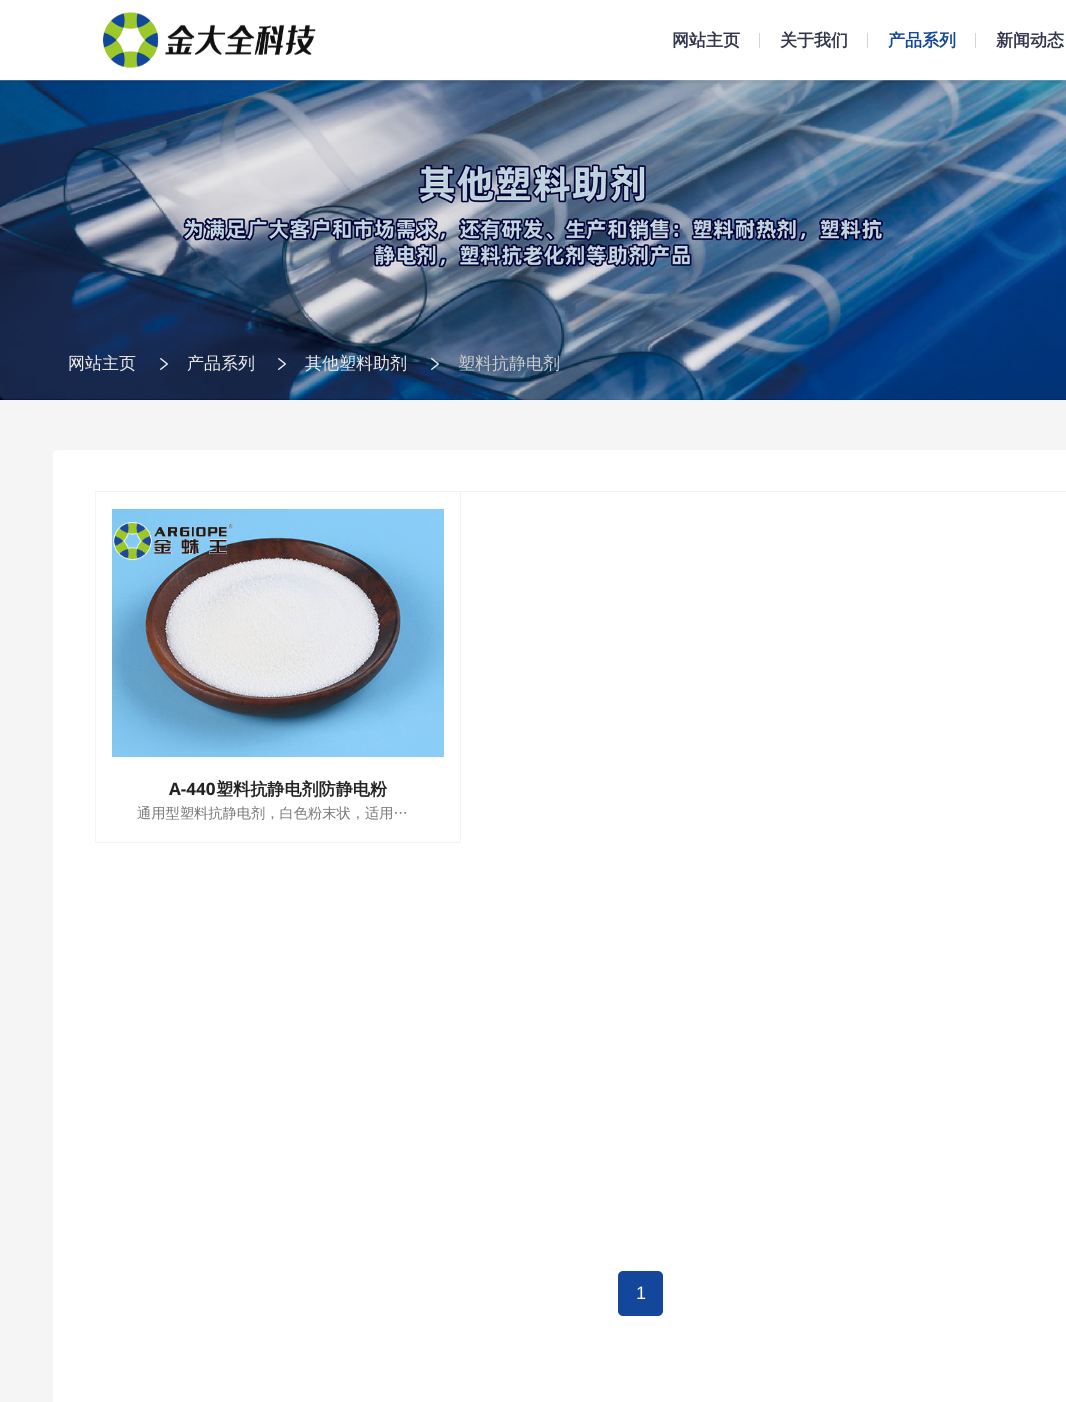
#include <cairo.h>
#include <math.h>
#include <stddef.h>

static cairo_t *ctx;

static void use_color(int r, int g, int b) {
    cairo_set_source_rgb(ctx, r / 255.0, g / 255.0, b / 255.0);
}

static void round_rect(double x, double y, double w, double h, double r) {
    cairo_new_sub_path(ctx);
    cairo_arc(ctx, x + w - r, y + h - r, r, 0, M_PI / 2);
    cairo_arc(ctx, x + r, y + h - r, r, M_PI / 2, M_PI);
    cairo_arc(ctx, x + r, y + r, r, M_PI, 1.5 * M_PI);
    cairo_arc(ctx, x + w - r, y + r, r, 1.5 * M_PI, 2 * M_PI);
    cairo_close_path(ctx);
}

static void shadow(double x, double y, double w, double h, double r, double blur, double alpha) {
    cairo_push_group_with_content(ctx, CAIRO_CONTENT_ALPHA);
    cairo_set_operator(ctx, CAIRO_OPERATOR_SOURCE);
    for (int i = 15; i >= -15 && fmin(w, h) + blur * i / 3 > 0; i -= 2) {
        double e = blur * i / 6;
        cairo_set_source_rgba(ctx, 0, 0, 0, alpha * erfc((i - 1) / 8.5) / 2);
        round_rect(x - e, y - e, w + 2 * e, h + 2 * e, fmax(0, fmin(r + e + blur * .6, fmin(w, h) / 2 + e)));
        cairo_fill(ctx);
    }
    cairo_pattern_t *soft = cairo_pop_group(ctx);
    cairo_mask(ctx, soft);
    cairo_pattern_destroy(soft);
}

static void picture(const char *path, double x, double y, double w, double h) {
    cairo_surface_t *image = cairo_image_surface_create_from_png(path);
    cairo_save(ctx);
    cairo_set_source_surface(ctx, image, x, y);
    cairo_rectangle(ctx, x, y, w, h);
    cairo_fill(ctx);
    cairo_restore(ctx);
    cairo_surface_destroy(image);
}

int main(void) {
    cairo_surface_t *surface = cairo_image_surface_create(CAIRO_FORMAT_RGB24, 1066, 1402);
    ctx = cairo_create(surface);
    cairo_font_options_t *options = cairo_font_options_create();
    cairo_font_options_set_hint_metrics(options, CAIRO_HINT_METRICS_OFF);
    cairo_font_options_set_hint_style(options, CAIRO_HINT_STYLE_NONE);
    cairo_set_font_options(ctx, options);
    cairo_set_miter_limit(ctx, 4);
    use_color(255, 255, 255);
    cairo_paint(ctx);
    picture("img2.png", 0, 80, 1066, 320);
    cairo_save(ctx);
    cairo_rectangle(ctx, 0, 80, 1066, 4);
    cairo_clip(ctx);
    use_color(0, 0, 0);
    shadow(0, 1, 1066, 80, 0, 2.5, 0.15);
    cairo_restore(ctx);
    picture("img1.png", 103, 12, 213, 56);
    cairo_select_font_face(ctx, "WenQuanYi Zen Hei", CAIRO_FONT_SLANT_NORMAL, CAIRO_FONT_WEIGHT_BOLD);
    cairo_set_font_size(ctx, 17);
    use_color(52, 54, 78);
    cairo_move_to(ctx, 672, 46);
    cairo_show_text(ctx, "网站主页");
    use_color(213, 213, 213);
    cairo_rectangle(ctx, 759, 33, 1, 15);
    cairo_fill(ctx);
    use_color(52, 54, 78);
    cairo_move_to(ctx, 780, 46);
    cairo_show_text(ctx, "关于我们");
    use_color(213, 213, 213);
    cairo_rectangle(ctx, 867, 33, 1, 15);
    cairo_fill(ctx);
    use_color(19, 71, 156);
    cairo_move_to(ctx, 888, 46);
    cairo_show_text(ctx, "产品系列");
    use_color(213, 213, 213);
    cairo_rectangle(ctx, 975, 33, 1, 15);
    cairo_fill(ctx);
    use_color(52, 54, 78);
    cairo_move_to(ctx, 996, 46);
    cairo_show_text(ctx, "新闻动态");
    cairo_select_font_face(ctx, "WenQuanYi Zen Hei Medium", CAIRO_FONT_SLANT_NORMAL, CAIRO_FONT_WEIGHT_NORMAL);
    use_color(238, 238, 238);
    cairo_move_to(ctx, 68, 369);
    cairo_show_text(ctx, "网站主页");
    picture("img3.png", 160, 358, 8, 12);
    cairo_move_to(ctx, 187, 369);
    cairo_show_text(ctx, "产品系列");
    picture("img4.png", 278, 358, 8, 12);
    cairo_move_to(ctx, 305, 369);
    cairo_show_text(ctx, "其他塑料助剂");
    picture("img5.png", 431, 358, 8, 12);
    use_color(204, 204, 204);
    cairo_move_to(ctx, 458, 369);
    cairo_show_text(ctx, "塑料抗静电剂");
    use_color(245, 245, 245);
    cairo_rectangle(ctx, 0, 400, 1066, 1002);
    cairo_fill(ctx);
    use_color(255, 255, 255);
    round_rect(53, 450, 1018, 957, 5);
    cairo_fill(ctx);
    use_color(242, 242, 242);
    cairo_new_path(ctx);
    cairo_move_to(ctx, 95, 491);
    cairo_line_to(ctx, 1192, 491);
    cairo_line_to(ctx, 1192, 492);
    cairo_line_to(ctx, 96, 492);
    cairo_close_path(ctx);
    cairo_fill(ctx);
    cairo_set_source_rgba(ctx, 0, 0, 0, 0.05);
    cairo_new_path(ctx);
    cairo_move_to(ctx, 95, 843);
    cairo_line_to(ctx, 95, 491);
    cairo_line_to(ctx, 96, 492);
    cairo_line_to(ctx, 96, 843);
    cairo_close_path(ctx);
    cairo_fill(ctx);
    use_color(242, 242, 242);
    cairo_new_path(ctx);
    cairo_move_to(ctx, 461, 492);
    cairo_line_to(ctx, 461, 843);
    cairo_line_to(ctx, 460, 842);
    cairo_line_to(ctx, 460, 492);
    cairo_close_path(ctx);
    cairo_fill(ctx);
    cairo_set_source_rgba(ctx, 0, 0, 0, 0.05);
    cairo_new_path(ctx);
    cairo_move_to(ctx, 461, 843);
    cairo_line_to(ctx, 96, 843);
    cairo_line_to(ctx, 96, 842);
    cairo_line_to(ctx, 460, 842);
    cairo_close_path(ctx);
    cairo_fill(ctx);
    picture("img6.png", 112, 509, 332, 248);
    cairo_select_font_face(ctx, "Open Sans", CAIRO_FONT_SLANT_NORMAL, CAIRO_FONT_WEIGHT_BOLD);
    cairo_set_font_size(ctx, 17.1);
    use_color(34, 34, 34);
    cairo_move_to(ctx, 169, 795);
    cairo_show_text(ctx, "A-440");
    cairo_select_font_face(ctx, "WenQuanYi Zen Hei", CAIRO_FONT_SLANT_NORMAL, CAIRO_FONT_WEIGHT_BOLD);
    cairo_move_to(ctx, 216, 795);
    cairo_show_text(ctx, "塑料抗静电剂防静电粉");
    cairo_select_font_face(ctx, "WenQuanYi Zen Hei Medium", CAIRO_FONT_SLANT_NORMAL, CAIRO_FONT_WEIGHT_NORMAL);
    cairo_set_font_size(ctx, 14.25);
    use_color(119, 119, 119);
    cairo_move_to(ctx, 137, 818);
    cairo_show_text(ctx, "通用型塑料抗静电剂，白色粉末状，适用…");
    use_color(19, 71, 156);
    round_rect(618, 1271, 45, 45, 5);
    cairo_fill(ctx);
    cairo_select_font_face(ctx, "Liberation Sans", CAIRO_FONT_SLANT_NORMAL, CAIRO_FONT_WEIGHT_NORMAL);
    cairo_set_font_size(ctx, 18);
    use_color(255, 255, 255);
    cairo_move_to(ctx, 636, 1299);
    cairo_show_text(ctx, "1");
    cairo_surface_write_to_png(surface, "result.png");
    cairo_font_options_destroy(options);
    cairo_destroy(ctx);
    cairo_surface_destroy(surface);
    return 0;
}
